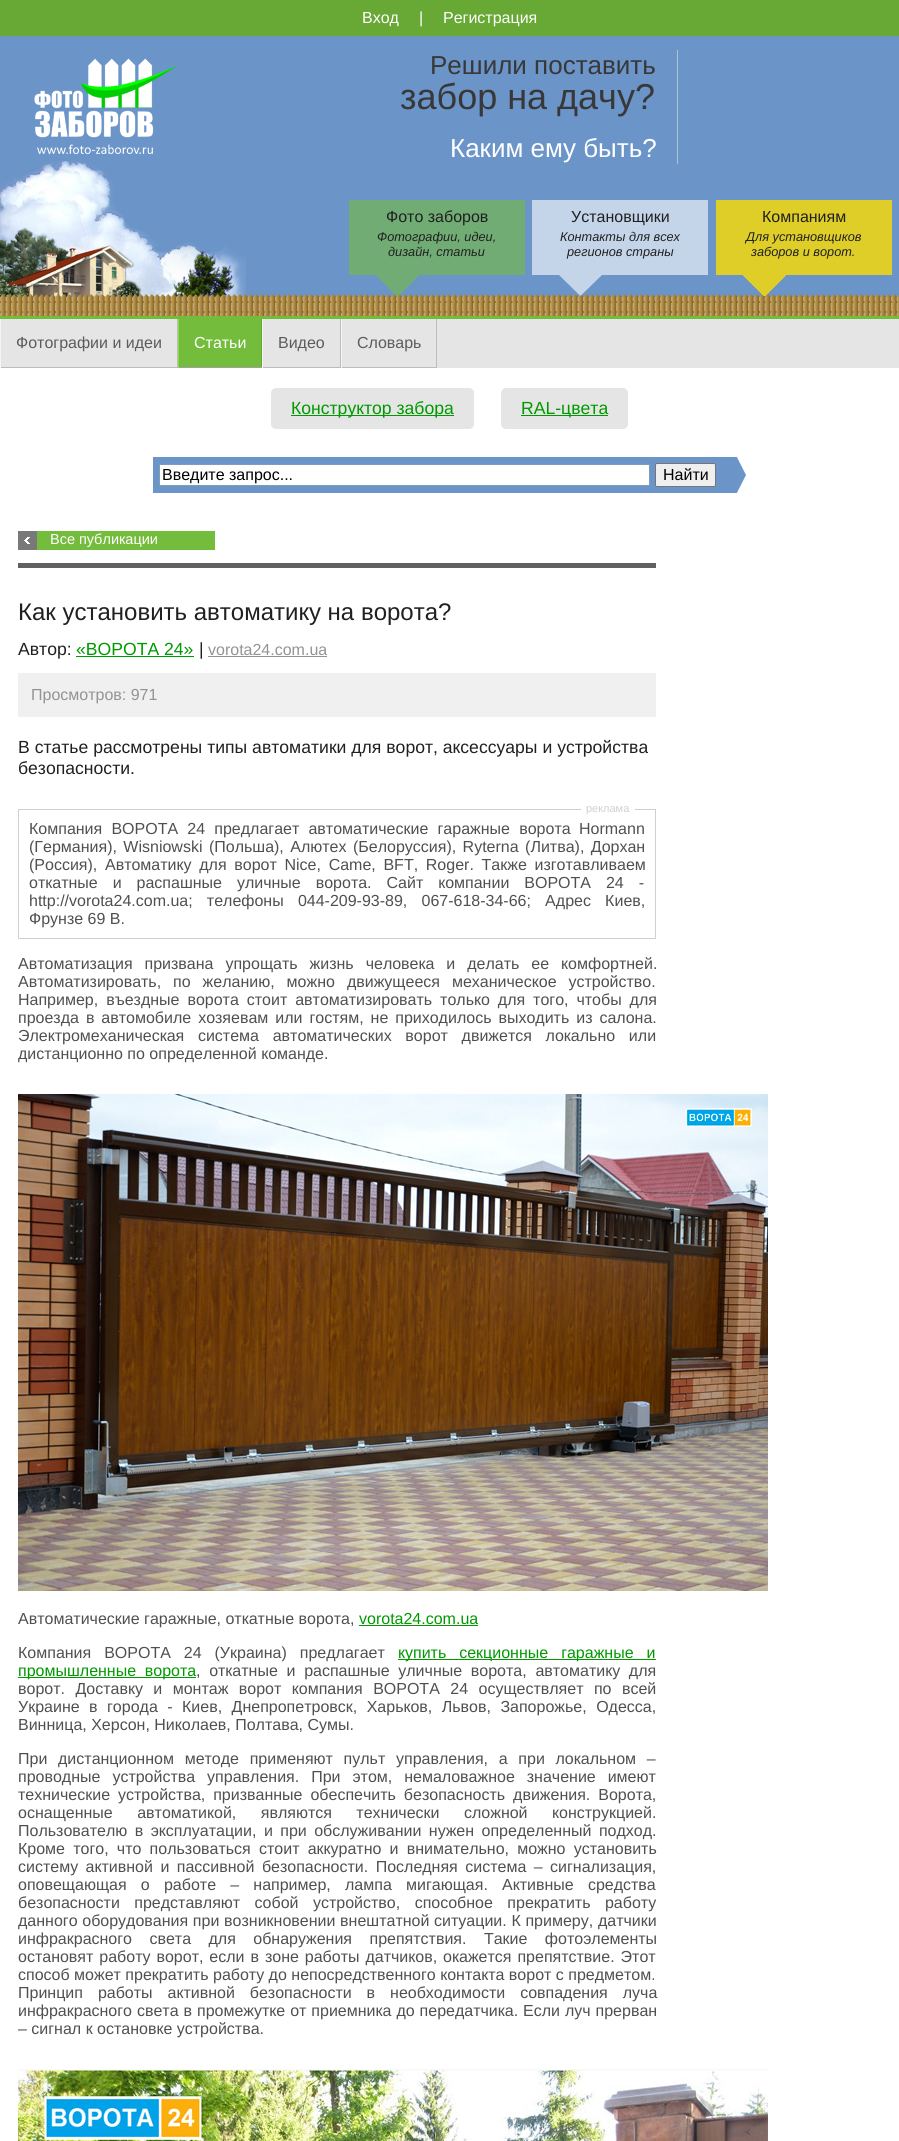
#include <cairo.h>
#include <math.h>
#include <stddef.h>

static cairo_t *ctx;

static void use_color(int r, int g, int b) {
    cairo_set_source_rgb(ctx, r / 255.0, g / 255.0, b / 255.0);
}

static void spaced_text(double x, double y, const char *s, double letter, double word) {
    cairo_move_to(ctx, x, y);
    while (*s) {
        char ch[5] = {0};
        int n = 0;
        do ch[n++] = *s++; while ((*s & 0xC0) == 0x80);
        cairo_show_text(ctx, ch);
        cairo_rel_move_to(ctx, letter + word * (*ch == ' '), 0);
    }
}

static void round_rect(double x, double y, double w, double h, double r) {
    cairo_new_sub_path(ctx);
    cairo_arc(ctx, x + w - r, y + h - r, r, 0, M_PI / 2);
    cairo_arc(ctx, x + r, y + h - r, r, M_PI / 2, M_PI);
    cairo_arc(ctx, x + r, y + r, r, M_PI, 1.5 * M_PI);
    cairo_arc(ctx, x + w - r, y + r, r, 1.5 * M_PI, 2 * M_PI);
    cairo_close_path(ctx);
}

static void picture(const char *path, double x, double y, double w, double h) {
    cairo_surface_t *image = cairo_image_surface_create_from_png(path);
    cairo_save(ctx);
    cairo_set_source_surface(ctx, image, x, y);
    cairo_rectangle(ctx, x, y, w, h);
    cairo_fill(ctx);
    cairo_restore(ctx);
    cairo_surface_destroy(image);
}

int main(void) {
    cairo_surface_t *surface = cairo_image_surface_create(CAIRO_FORMAT_RGB24, 899, 2141);
    ctx = cairo_create(surface);
    cairo_font_options_t *options = cairo_font_options_create();
    cairo_font_options_set_hint_metrics(options, CAIRO_HINT_METRICS_OFF);
    cairo_font_options_set_hint_style(options, CAIRO_HINT_STYLE_NONE);
    cairo_set_font_options(ctx, options);
    cairo_set_miter_limit(ctx, 4);
    use_color(255, 255, 255);
    cairo_paint(ctx);
    use_color(104, 168, 53);
    cairo_rectangle(ctx, 0, 0, 899, 36);
    cairo_fill(ctx);
    cairo_select_font_face(ctx, "Liberation Sans", CAIRO_FONT_SLANT_NORMAL, CAIRO_FONT_WEIGHT_NORMAL);
    cairo_set_font_size(ctx, 16);
    use_color(255, 255, 255);
    cairo_move_to(ctx, 362, 23);
    cairo_show_text(ctx, "Вход");
    cairo_move_to(ctx, 419, 23);
    cairo_show_text(ctx, "|");
    cairo_move_to(ctx, 443, 23);
    cairo_show_text(ctx, "Регистрация");
    use_color(107, 148, 200);
    cairo_rectangle(ctx, 0, 36, 899, 261);
    cairo_fill(ctx);
    picture("img2.png", 0, 159, 246, 138);
    picture("img1.png", 34, 58, 143, 103);
    use_color(177, 194, 212);
    cairo_rectangle(ctx, 677, 50, 1, 114);
    cairo_fill(ctx);
    cairo_set_font_size(ctx, 26);
    use_color(56, 56, 56);
    cairo_move_to(ctx, 430, 74);
    cairo_show_text(ctx, "Решили поставить");
    cairo_set_font_size(ctx, 36);
    cairo_move_to(ctx, 400, 109);
    cairo_show_text(ctx, "забор на дачу?");
    cairo_set_font_size(ctx, 26);
    use_color(255, 255, 255);
    cairo_move_to(ctx, 450, 157);
    cairo_show_text(ctx, "Каким ему быть?");
    picture("img6.png", 0, 294, 899, 22);
    picture("img3.png", 349, 200, 176, 96);
    cairo_set_font_size(ctx, 16);
    use_color(32, 32, 32);
    cairo_move_to(ctx, 386, 222);
    cairo_show_text(ctx, "Фото заборов");
    cairo_select_font_face(ctx, "Liberation Sans", CAIRO_FONT_SLANT_ITALIC, CAIRO_FONT_WEIGHT_NORMAL);
    cairo_set_font_size(ctx, 12.75);
    cairo_move_to(ctx, 377, 241);
    cairo_show_text(ctx, "Фотографии, идеи,");
    cairo_move_to(ctx, 388, 256);
    cairo_show_text(ctx, "дизайн, статьи");
    picture("img4.png", 532, 200, 176, 96);
    cairo_select_font_face(ctx, "Liberation Sans", CAIRO_FONT_SLANT_NORMAL, CAIRO_FONT_WEIGHT_NORMAL);
    cairo_set_font_size(ctx, 16);
    cairo_move_to(ctx, 571, 222);
    cairo_show_text(ctx, "Установщики");
    cairo_select_font_face(ctx, "Liberation Sans", CAIRO_FONT_SLANT_ITALIC, CAIRO_FONT_WEIGHT_NORMAL);
    cairo_set_font_size(ctx, 12.75);
    cairo_move_to(ctx, 560, 241);
    cairo_show_text(ctx, "Контакты для всех");
    cairo_move_to(ctx, 567, 256);
    cairo_show_text(ctx, "регионов страны");
    picture("img5.png", 716, 200, 176, 96);
    cairo_select_font_face(ctx, "Liberation Sans", CAIRO_FONT_SLANT_NORMAL, CAIRO_FONT_WEIGHT_NORMAL);
    cairo_set_font_size(ctx, 16);
    cairo_move_to(ctx, 762, 222);
    cairo_show_text(ctx, "Компаниям");
    cairo_select_font_face(ctx, "Liberation Sans", CAIRO_FONT_SLANT_ITALIC, CAIRO_FONT_WEIGHT_NORMAL);
    cairo_set_font_size(ctx, 12.75);
    cairo_move_to(ctx, 746, 241);
    cairo_show_text(ctx, "Для установщиков");
    cairo_move_to(ctx, 751, 256);
    cairo_show_text(ctx, "заборов и ворот.");
    use_color(229, 229, 229);
    cairo_rectangle(ctx, 1, 319, 898, 49);
    cairo_fill(ctx);
    use_color(116, 188, 60);
    cairo_rectangle(ctx, 0, 316, 899, 3);
    cairo_fill(ctx);
    use_color(188, 188, 188);
    cairo_rectangle(ctx, 177, 319, 1, 49);
    cairo_fill(ctx);
    cairo_rectangle(ctx, 0, 367, 178, 1);
    cairo_fill(ctx);
    use_color(245, 245, 245);
    cairo_rectangle(ctx, 0, 319, 1, 49);
    cairo_fill(ctx);
    cairo_select_font_face(ctx, "Liberation Sans", CAIRO_FONT_SLANT_NORMAL, CAIRO_FONT_WEIGHT_NORMAL);
    cairo_set_font_size(ctx, 16);
    use_color(92, 92, 92);
    cairo_move_to(ctx, 16, 348);
    cairo_show_text(ctx, "Фотографии и идеи");
    use_color(116, 188, 60);
    cairo_rectangle(ctx, 179, 319, 82, 48);
    cairo_fill(ctx);
    use_color(104, 168, 53);
    cairo_rectangle(ctx, 261, 319, 1, 49);
    cairo_fill(ctx);
    use_color(160, 160, 160);
    cairo_rectangle(ctx, 178, 367, 84, 1);
    cairo_fill(ctx);
    use_color(134, 222, 65);
    cairo_rectangle(ctx, 178, 319, 1, 49);
    cairo_fill(ctx);
    use_color(255, 255, 255);
    cairo_move_to(ctx, 194, 348);
    cairo_show_text(ctx, "Статьи");
    use_color(188, 188, 188);
    cairo_rectangle(ctx, 340, 319, 1, 49);
    cairo_fill(ctx);
    cairo_rectangle(ctx, 262, 367, 79, 1);
    cairo_fill(ctx);
    use_color(245, 245, 245);
    cairo_rectangle(ctx, 262, 319, 1, 49);
    cairo_fill(ctx);
    use_color(92, 92, 92);
    cairo_move_to(ctx, 278, 348);
    cairo_show_text(ctx, "Видео");
    use_color(188, 188, 188);
    cairo_rectangle(ctx, 436, 319, 1, 49);
    cairo_fill(ctx);
    cairo_rectangle(ctx, 341, 367, 96, 1);
    cairo_fill(ctx);
    use_color(245, 245, 245);
    cairo_rectangle(ctx, 341, 319, 1, 49);
    cairo_fill(ctx);
    use_color(92, 92, 92);
    cairo_move_to(ctx, 357, 348);
    cairo_show_text(ctx, "Словарь");
    use_color(229, 229, 229);
    round_rect(271, 388, 203, 41, 5);
    cairo_fill(ctx);
    use_color(0, 153, 0);
    cairo_rectangle(ctx, 291, 415, 163, 1);
    cairo_fill(ctx);
    cairo_set_font_size(ctx, 17.6);
    cairo_move_to(ctx, 291, 414);
    cairo_show_text(ctx, "Конструктор забора");
    use_color(229, 229, 229);
    round_rect(501, 388, 127, 41, 5);
    cairo_fill(ctx);
    use_color(0, 153, 0);
    cairo_rectangle(ctx, 521, 415, 87, 1);
    cairo_fill(ctx);
    cairo_move_to(ctx, 521, 414);
    cairo_show_text(ctx, "RAL-цвета");
    use_color(107, 148, 200);
    cairo_rectangle(ctx, 153, 457, 563, 36);
    cairo_fill(ctx);
    use_color(255, 255, 255);
    cairo_rectangle(ctx, 159.5, 464.5, 490, 21);
    cairo_fill_preserve(ctx);
    use_color(127, 157, 185);
    cairo_set_line_width(ctx, 1);
    cairo_stroke(ctx);
    cairo_set_font_size(ctx, 16);
    use_color(0, 0, 0);
    cairo_move_to(ctx, 162, 480);
    cairo_show_text(ctx, "Введите запрос...");
    use_color(239, 239, 239);
    round_rect(655.5, 463.5, 60, 23, 1.5);
    cairo_fill_preserve(ctx);
    use_color(118, 118, 118);
    cairo_stroke(ctx);
    use_color(0, 0, 0);
    cairo_move_to(ctx, 663, 480);
    cairo_show_text(ctx, "Найти");
    cairo_save(ctx);
    cairo_rectangle(ctx, 716, 457, 30, 36);
    cairo_clip(ctx);
    use_color(107, 148, 200);
    cairo_new_path(ctx);
    cairo_move_to(ctx, 716, 534);
    cairo_line_to(ctx, 716, 416);
    cairo_line_to(ctx, 746, 475);
    cairo_close_path(ctx);
    cairo_fill(ctx);
    cairo_restore(ctx);
    use_color(116, 188, 60);
    cairo_rectangle(ctx, 37, 531, 178, 19);
    cairo_fill(ctx);
    picture("img7.png", 18, 531, 19, 19);
    cairo_set_font_size(ctx, 14.5);
    use_color(255, 255, 255);
    cairo_move_to(ctx, 50, 544);
    cairo_show_text(ctx, "Все публикации");
    use_color(96, 96, 96);
    cairo_rectangle(ctx, 18, 563, 638, 5);
    cairo_fill(ctx);
    cairo_set_font_size(ctx, 24);
    use_color(32, 32, 32);
    cairo_move_to(ctx, 18, 620);
    cairo_show_text(ctx, "Как установить автоматику на ворота?");
    cairo_set_font_size(ctx, 17.6);
    cairo_move_to(ctx, 18, 655);
    cairo_show_text(ctx, "Автор:");
    use_color(0, 153, 0);
    cairo_move_to(ctx, 76, 655);
    cairo_show_text(ctx, "«ВОРОТА 24»");
    cairo_rectangle(ctx, 76, 656, 118, 1);
    cairo_fill(ctx);
    use_color(32, 32, 32);
    cairo_move_to(ctx, 199, 655);
    cairo_show_text(ctx, "|");
    cairo_set_font_size(ctx, 16);
    use_color(147, 147, 147);
    cairo_move_to(ctx, 208, 655);
    cairo_show_text(ctx, "vorota24.com.ua");
    cairo_rectangle(ctx, 208, 656, 119, 1);
    cairo_fill(ctx);
    use_color(240, 240, 240);
    cairo_rectangle(ctx, 18, 673, 638, 44);
    cairo_fill(ctx);
    use_color(147, 147, 147);
    cairo_move_to(ctx, 31, 700);
    cairo_show_text(ctx, "Просмотров: 971");
    cairo_set_font_size(ctx, 17.6);
    use_color(32, 32, 32);
    cairo_move_to(ctx, 18, 753);
    cairo_show_text(ctx, "В статье рассмотрены типы автоматики для ворот, аксессуары и устройства");
    cairo_move_to(ctx, 18, 774);
    cairo_show_text(ctx, "безопасности.");
    cairo_rectangle(ctx, 18.5, 809.5, 637, 129);
    use_color(208, 208, 208);
    cairo_stroke(ctx);
    use_color(255, 255, 255);
    cairo_rectangle(ctx, 581, 809, 54, 1);
    cairo_fill(ctx);
    cairo_set_font_size(ctx, 11);
    use_color(208, 208, 208);
    cairo_move_to(ctx, 586, 812);
    cairo_show_text(ctx, "реклама");
    cairo_set_font_size(ctx, 16);
    use_color(80, 80, 80);
    spaced_text(29, 834, "Компания ВОРОТА 24 предлагает автоматические гаражные ворота", 0, 4.75);
    cairo_move_to(ctx, 579, 834);
    cairo_show_text(ctx, "Hormann");
    spaced_text(29, 852, "(Германия), Wisniowski (Польша), Алютех (Белоруссия), Ryterna (Литва), Дорхан", 0, 2);
    spaced_text(29, 870, "(Россия), Автоматику для ворот Nice, Came, BFT, Roger. Также изготавливаем", 0, 3.25);
    spaced_text(29, 888, "откатные и распашные уличные ворота. Сайт компании ВОРОТА 24 -", 0, 10.5);
    spaced_text(29, 906, "http://vorota24.com.ua; телефоны 044-209-93-89, 067-618-34-66; Адрес Киев,", 0, 9.75);
    cairo_move_to(ctx, 29, 924);
    cairo_show_text(ctx, "Фрунзе 69 В.");
    spaced_text(18, 969, "Автоматизация призвана упрощать жизнь человека и делать ее комфортней.", 0, 7.5);
    spaced_text(18, 987, "Автоматизировать, по желанию, можно движущееся механическое устройство.", 0, 7.5);
    spaced_text(18, 1005, "Например, въездные ворота стоит автоматизировать только для того, чтобы для", 0, 3.5);
    spaced_text(18, 1023, "проезда в автомобиле хозяевам или гостям, не приходилось выходить из салона.", 0, 2.5);
    spaced_text(18, 1041, "Электромеханическая система автоматических ворот движется локально или", 0, 9.25);
    cairo_move_to(ctx, 18, 1059);
    cairo_show_text(ctx, "дистанционно по определенной команде.");
    picture("img8.png", 18, 1094, 750, 497);
    cairo_move_to(ctx, 18, 1624);
    cairo_show_text(ctx, "Автоматические гаражные, откатные ворота,");
    use_color(0, 153, 0);
    cairo_move_to(ctx, 359, 1624);
    cairo_show_text(ctx, "vorota24.com.ua");
    cairo_rectangle(ctx, 359, 1625, 119, 1);
    cairo_fill(ctx);
    use_color(80, 80, 80);
    spaced_text(18, 1658, "Компания ВОРОТА 24 (Украина) предлагает", 0, 8.5);
    use_color(0, 153, 0);
    cairo_rectangle(ctx, 398, 1659, 258, 1);
    cairo_fill(ctx);
    spaced_text(398, 1658, "купить секционные гаражные и", 0, 8.5);
    cairo_rectangle(ctx, 18, 1677, 178, 1);
    cairo_fill(ctx);
    spaced_text(18, 1676, "промышленные ворота", 0, 4.25);
    use_color(80, 80, 80);
    spaced_text(196, 1676, ", откатные и распашные уличные ворота, автоматику для", 0, 4.25);
    spaced_text(18, 1694, "ворот. Доставку и монтаж ворот компания ВОРОТА 24 осуществляет по всей", 0, 6);
    spaced_text(18, 1712, "Украине в города - Киев, Днепропетровск, Харьков, Львов, Запорожье, Одесса,", 0, 5);
    cairo_move_to(ctx, 18, 1730);
    cairo_show_text(ctx, "Винница, Херсон, Николаев, Полтава, Сумы.");
    spaced_text(18, 1764, "При дистанционном методе применяют пульт управления, а при локальном –", 0, 6.25);
    spaced_text(18, 1782, "проводные устройства управления. При этом, немаловажное значение имеют", 0, 7.5);
    spaced_text(18, 1800, "технические устройства, призванные обеспечить безопасность движения. Ворота,", 0, 3.5);
    spaced_text(18, 1818, "оснащенные автоматикой, являются технически сложной конструкцией.", 0, 20);
    spaced_text(18, 1836, "Пользователю в эксплуатации, и при обслуживании нужен определенный подход.", 0, 3);
    spaced_text(18, 1854, "Кроме того, что пользоваться стоит аккуратно и внимательно, можно установить", 0, 3.75);
    spaced_text(18, 1872, "систему активной и пассивной безопасности. Последняя система – сигнализация,", 0, 3);
    spaced_text(18, 1890, "оповещающая о работе – например, лампа мигающая. Активные средства", 0, 9.75);
    spaced_text(18, 1908, "безопасности представляют собой устройство, способное прекратить работу", 0, 10);
    spaced_text(18, 1926, "данного оборудования при возникновении внештатной ситуации. К примеру, датчики", 0, 0.25);
    spaced_text(18, 1944, "инфракрасного света для обнаружения препятствия. Такие фотоэлементы", 0, 13);
    spaced_text(18, 1962, "остановят работу ворот, если в зоне работы датчиков, окажется препятствие. Этот", 0, 1.5);
    cairo_move_to(ctx, 18, 1980);
    cairo_show_text(ctx, "способ может прекратить работу до непосредственного контакта ворот с предметом.");
    spaced_text(18, 1998, "Принцип работы активной безопасности в необходимости совпадения луча", 0, 10.5);
    spaced_text(18, 2016, "инфракрасного света в промежутке от приемника до передатчика. Если луч прерван", 0, 0.5);
    cairo_move_to(ctx, 18, 2034);
    cairo_show_text(ctx, "– сигнал к остановке устройства.");
    picture("img9.png", 18, 2069, 750, 72);
    cairo_surface_write_to_png(surface, "result.png");
    cairo_font_options_destroy(options);
    cairo_destroy(ctx);
    cairo_surface_destroy(surface);
    return 0;
}
